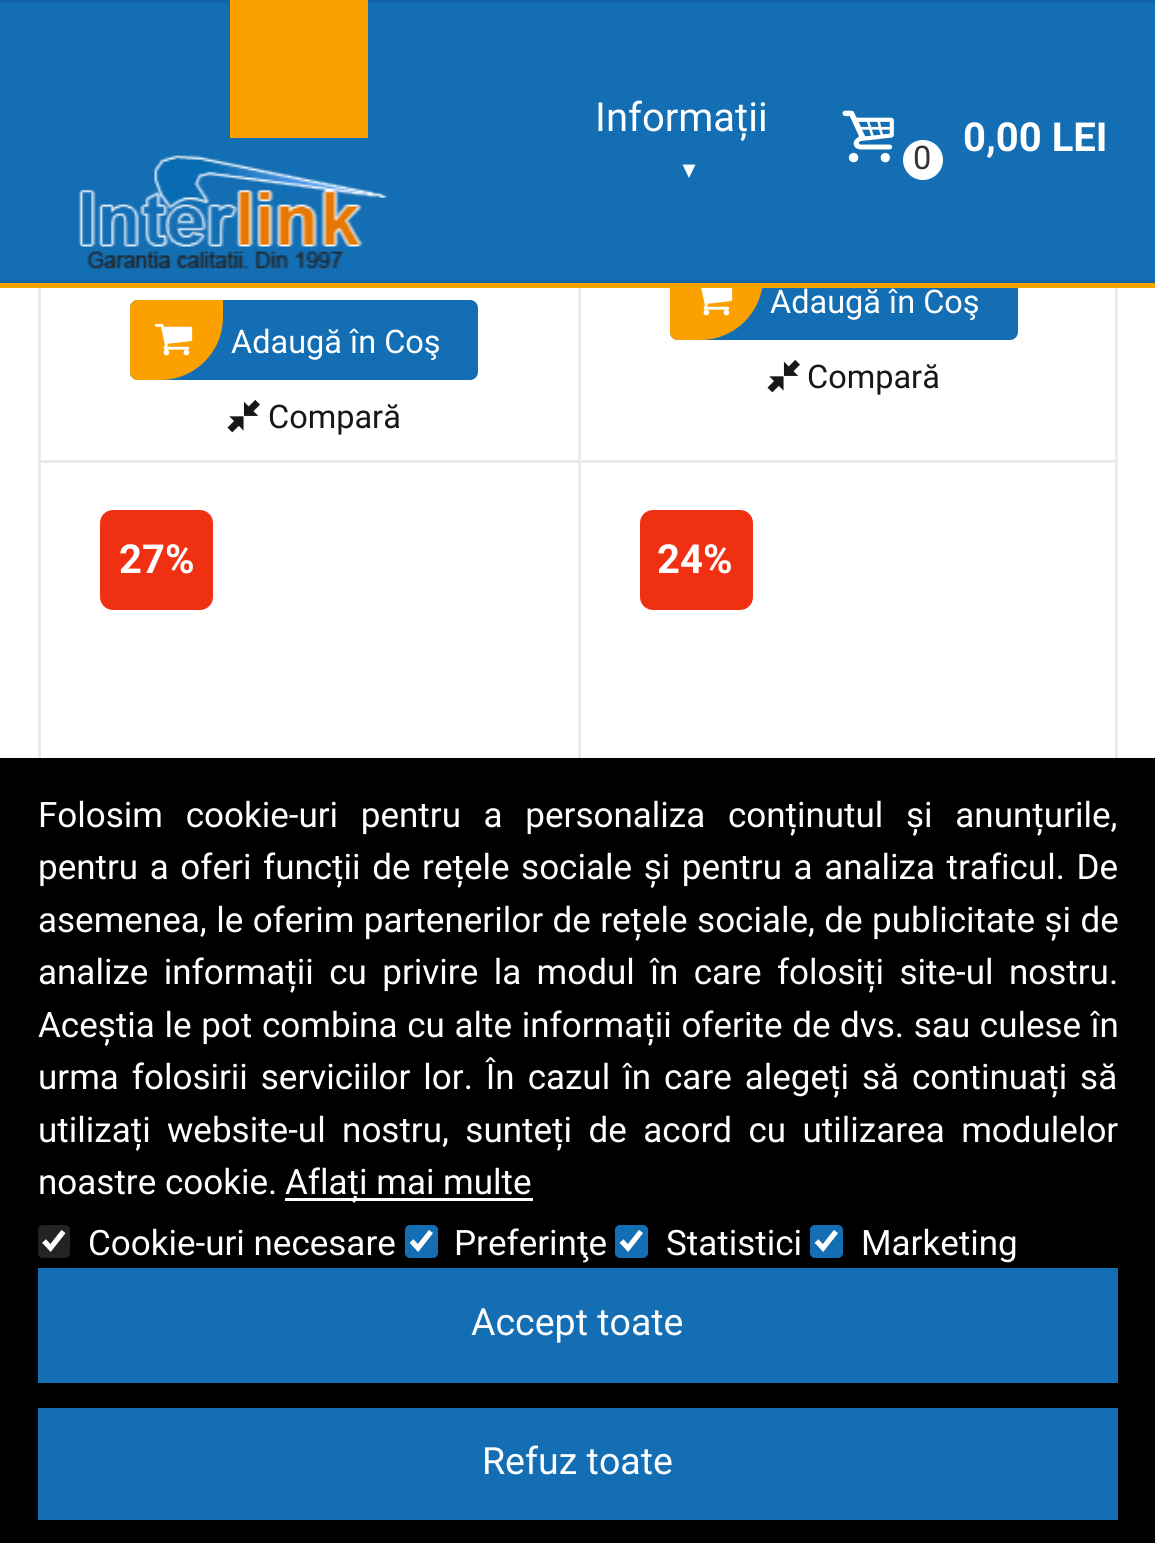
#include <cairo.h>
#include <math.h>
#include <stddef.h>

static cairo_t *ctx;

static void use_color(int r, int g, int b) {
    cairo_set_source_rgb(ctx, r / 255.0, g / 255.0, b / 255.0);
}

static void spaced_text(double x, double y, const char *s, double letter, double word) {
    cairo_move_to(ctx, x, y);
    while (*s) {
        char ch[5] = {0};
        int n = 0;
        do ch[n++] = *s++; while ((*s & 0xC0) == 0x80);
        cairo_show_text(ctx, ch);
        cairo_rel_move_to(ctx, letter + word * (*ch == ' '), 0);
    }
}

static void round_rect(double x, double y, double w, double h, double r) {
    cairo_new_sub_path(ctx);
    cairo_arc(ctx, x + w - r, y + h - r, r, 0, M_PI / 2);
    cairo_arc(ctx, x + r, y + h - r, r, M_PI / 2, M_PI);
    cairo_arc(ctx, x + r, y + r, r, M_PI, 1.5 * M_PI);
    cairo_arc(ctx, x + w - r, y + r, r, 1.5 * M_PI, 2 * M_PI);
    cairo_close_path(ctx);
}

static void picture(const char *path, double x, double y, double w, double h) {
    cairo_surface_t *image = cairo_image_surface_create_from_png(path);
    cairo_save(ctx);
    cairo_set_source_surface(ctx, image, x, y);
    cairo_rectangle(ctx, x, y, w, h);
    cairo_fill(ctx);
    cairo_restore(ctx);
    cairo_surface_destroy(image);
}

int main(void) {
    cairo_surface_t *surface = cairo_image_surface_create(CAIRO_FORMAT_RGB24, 1155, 1543);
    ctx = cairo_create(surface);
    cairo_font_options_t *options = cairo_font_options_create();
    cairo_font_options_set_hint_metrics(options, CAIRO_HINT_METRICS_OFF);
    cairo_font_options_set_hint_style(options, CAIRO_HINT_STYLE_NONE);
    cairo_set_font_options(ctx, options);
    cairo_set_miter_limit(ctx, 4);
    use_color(255, 255, 255);
    cairo_paint(ctx);
    cairo_rectangle(ctx, 39.5, -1.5, 1077, 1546);
    use_color(234, 234, 234);
    cairo_set_line_width(ctx, 3);
    cairo_stroke(ctx);
    use_color(19, 110, 180);
    round_rect(670, 260, 348, 80, 8);
    cairo_fill(ctx);
    use_color(252, 160, 0);
    cairo_new_path(ctx);
    cairo_move_to(ctx, 678, 260);
    cairo_line_to(ctx, 763, 260);
    cairo_line_to(ctx, 763, 277);
    cairo_curve_to(ctx, 763, 312, 735, 340, 700, 340);
    cairo_line_to(ctx, 678, 340);
    cairo_curve_to(ctx, 673.5, 340, 670, 336.5, 670, 332);
    cairo_line_to(ctx, 670, 268);
    cairo_curve_to(ctx, 670, 263.5, 673.5, 260, 678, 260);
    cairo_close_path(ctx);
    cairo_fill(ctx);
    cairo_rectangle(ctx, 0, 283, 1155, 5);
    cairo_fill(ctx);
    use_color(19, 110, 180);
    cairo_rectangle(ctx, 0, 3, 1155, 277);
    cairo_fill(ctx);
    use_color(17, 101, 166);
    cairo_rectangle(ctx, 0, 0, 1155, 3);
    cairo_fill(ctx);
    use_color(252, 160, 0);
    cairo_rectangle(ctx, 230, 0, 138, 138);
    cairo_fill(ctx);
    picture("img1.png", 78, 155, 309, 114);
    cairo_select_font_face(ctx, "Roboto", CAIRO_FONT_SLANT_NORMAL, CAIRO_FONT_WEIGHT_NORMAL);
    cairo_set_font_size(ctx, 40);
    use_color(255, 255, 255);
    cairo_move_to(ctx, 595, 131);
    cairo_show_text(ctx, "Informații");
    cairo_new_path(ctx);
    cairo_move_to(ctx, 689, 178);
    cairo_line_to(ctx, 682.5, 164.5);
    cairo_line_to(ctx, 695.5, 164.5);
    cairo_close_path(ctx);
    cairo_fill(ctx);
    picture("img2.png", 842, 110, 52, 53);
    cairo_arc(ctx, 923, 160, 20, 0, 2 * M_PI);
    cairo_fill(ctx);
    cairo_set_font_size(ctx, 32.5);
    use_color(51, 51, 51);
    cairo_move_to(ctx, 913, 169);
    cairo_show_text(ctx, "0");
    cairo_select_font_face(ctx, "Roboto", CAIRO_FONT_SLANT_NORMAL, CAIRO_FONT_WEIGHT_BOLD);
    cairo_set_font_size(ctx, 40);
    use_color(255, 255, 255);
    cairo_move_to(ctx, 963, 151);
    cairo_show_text(ctx, "0,00 LEI");
    use_color(17, 101, 166);
    cairo_rectangle(ctx, 0, 280, 1155, 3);
    cairo_fill(ctx);
    use_color(234, 234, 234);
    cairo_rectangle(ctx, 578, 288, 3, 470);
    cairo_fill(ctx);
    cairo_rectangle(ctx, 40, 460, 1078, 3);
    cairo_fill(ctx);
    use_color(19, 110, 180);
    round_rect(130, 300, 348, 80, 8);
    cairo_fill(ctx);
    use_color(252, 160, 0);
    cairo_new_path(ctx);
    cairo_move_to(ctx, 138, 300);
    cairo_line_to(ctx, 223, 300);
    cairo_line_to(ctx, 223, 317);
    cairo_curve_to(ctx, 223, 352, 195, 380, 160, 380);
    cairo_line_to(ctx, 138, 380);
    cairo_curve_to(ctx, 133.5, 380, 130, 376.5, 130, 372);
    cairo_line_to(ctx, 130, 308);
    cairo_curve_to(ctx, 130, 303.5, 133.5, 300, 138, 300);
    cairo_close_path(ctx);
    cairo_fill(ctx);
    picture("img3.png", 155, 323, 38, 33);
    cairo_select_font_face(ctx, "Roboto", CAIRO_FONT_SLANT_NORMAL, CAIRO_FONT_WEIGHT_NORMAL);
    cairo_set_font_size(ctx, 32.5);
    use_color(255, 255, 255);
    cairo_move_to(ctx, 231, 353);
    cairo_show_text(ctx, "Adaugă în Coş");
    picture("img4.png", 227, 400, 33, 33);
    use_color(23, 23, 23);
    cairo_move_to(ctx, 268, 428);
    cairo_show_text(ctx, "Compară");
    picture("img5.png", 701, 288, 32, 28);
    use_color(255, 255, 255);
    cairo_move_to(ctx, 770, 313);
    cairo_show_text(ctx, "Adaugă în Coş");
    picture("img4.png", 767, 360, 33, 33);
    use_color(23, 23, 23);
    cairo_move_to(ctx, 807, 388);
    cairo_show_text(ctx, "Compară");
    use_color(239, 48, 18);
    round_rect(100, 510, 113, 100, 13);
    cairo_fill(ctx);
    cairo_select_font_face(ctx, "Roboto", CAIRO_FONT_SLANT_NORMAL, CAIRO_FONT_WEIGHT_BOLD);
    cairo_set_font_size(ctx, 40);
    use_color(255, 255, 255);
    cairo_move_to(ctx, 119, 573);
    cairo_show_text(ctx, "27%");
    use_color(239, 48, 18);
    round_rect(640, 510, 113, 100, 13);
    cairo_fill(ctx);
    use_color(255, 255, 255);
    cairo_move_to(ctx, 657, 573);
    cairo_show_text(ctx, "24%");
    use_color(0, 0, 0);
    cairo_rectangle(ctx, 0, 758, 1155, 785);
    cairo_fill(ctx);
    cairo_select_font_face(ctx, "Roboto", CAIRO_FONT_SLANT_NORMAL, CAIRO_FONT_WEIGHT_NORMAL);
    cairo_set_font_size(ctx, 35);
    use_color(255, 255, 255);
    spaced_text(38, 827, "Folosim cookie-uri pentru a personaliza conținutul și anunțurile,", 0, 14);
    spaced_text(38, 879, "pentru a oferi funcții de rețele sociale și pentru a analiza traficul. De", 0, 2.9);
    spaced_text(38, 932, "asemenea, le oferim partenerilor de rețele sociale, de publicitate și de", 0, 0.75);
    spaced_text(38, 984, "analize informații cu privire la modul în care folosiți site-ul nostru.", 0, 6.75);
    spaced_text(38, 1037, "Aceștia le pot combina cu alte informații oferite de dvs. sau culese în", 0, 1);
    spaced_text(38, 1089, "urma folosirii serviciilor lor. În cazul în care alegeți să continuați să", 0, 4.25);
    spaced_text(38, 1142, "utilizați website-ul nostru, sunteți de acord cu utilizarea modulelor", 0, 7.75);
    cairo_move_to(ctx, 38, 1194);
    cairo_show_text(ctx, "noastre cookie.");
    cairo_rectangle(ctx, 285, 1198, 248, 3);
    cairo_fill(ctx);
    cairo_move_to(ctx, 285, 1194);
    cairo_show_text(ctx, "Aflați mai multe");
    use_color(35, 35, 35);
    round_rect(38, 1225, 32, 33, 5);
    cairo_fill(ctx);
    cairo_new_path(ctx);
    cairo_move_to(ctx, 44, 1241);
    cairo_line_to(ctx, 50.5, 1248);
    cairo_line_to(ctx, 63.5, 1231.5);
    use_color(255, 255, 255);
    cairo_set_line_width(ctx, 5.2);
    cairo_stroke(ctx);
    cairo_move_to(ctx, 88, 1255);
    cairo_show_text(ctx, "Cookie-uri necesare");
    use_color(19, 110, 180);
    round_rect(405, 1225, 33, 33, 5);
    cairo_fill(ctx);
    cairo_new_path(ctx);
    cairo_move_to(ctx, 411.5, 1241);
    cairo_line_to(ctx, 418, 1248);
    cairo_line_to(ctx, 431, 1231.5);
    use_color(255, 255, 255);
    cairo_stroke(ctx);
    cairo_move_to(ctx, 454, 1255);
    cairo_show_text(ctx, "Preferinţe");
    use_color(19, 110, 180);
    round_rect(615, 1225, 33, 33, 5);
    cairo_fill(ctx);
    cairo_new_path(ctx);
    cairo_move_to(ctx, 621.5, 1241);
    cairo_line_to(ctx, 628, 1248);
    cairo_line_to(ctx, 641, 1231.5);
    use_color(255, 255, 255);
    cairo_stroke(ctx);
    cairo_move_to(ctx, 666, 1255);
    cairo_show_text(ctx, "Statistici");
    use_color(19, 110, 180);
    round_rect(810, 1225, 33, 33, 5);
    cairo_fill(ctx);
    cairo_new_path(ctx);
    cairo_move_to(ctx, 816.5, 1241);
    cairo_line_to(ctx, 823, 1248);
    cairo_line_to(ctx, 836, 1231.5);
    use_color(255, 255, 255);
    cairo_stroke(ctx);
    cairo_move_to(ctx, 861, 1255);
    cairo_show_text(ctx, "Marketing");
    use_color(19, 110, 180);
    cairo_rectangle(ctx, 38, 1268, 1080, 115);
    cairo_fill(ctx);
    cairo_set_font_size(ctx, 37.5);
    use_color(255, 255, 255);
    cairo_move_to(ctx, 471, 1335);
    cairo_show_text(ctx, "Accept toate");
    use_color(19, 110, 180);
    cairo_rectangle(ctx, 38, 1408, 1080, 112);
    cairo_fill(ctx);
    use_color(255, 255, 255);
    cairo_move_to(ctx, 482, 1474);
    cairo_show_text(ctx, "Refuz toate");
    cairo_surface_write_to_png(surface, "result.png");
    cairo_font_options_destroy(options);
    cairo_destroy(ctx);
    cairo_surface_destroy(surface);
    return 0;
}
